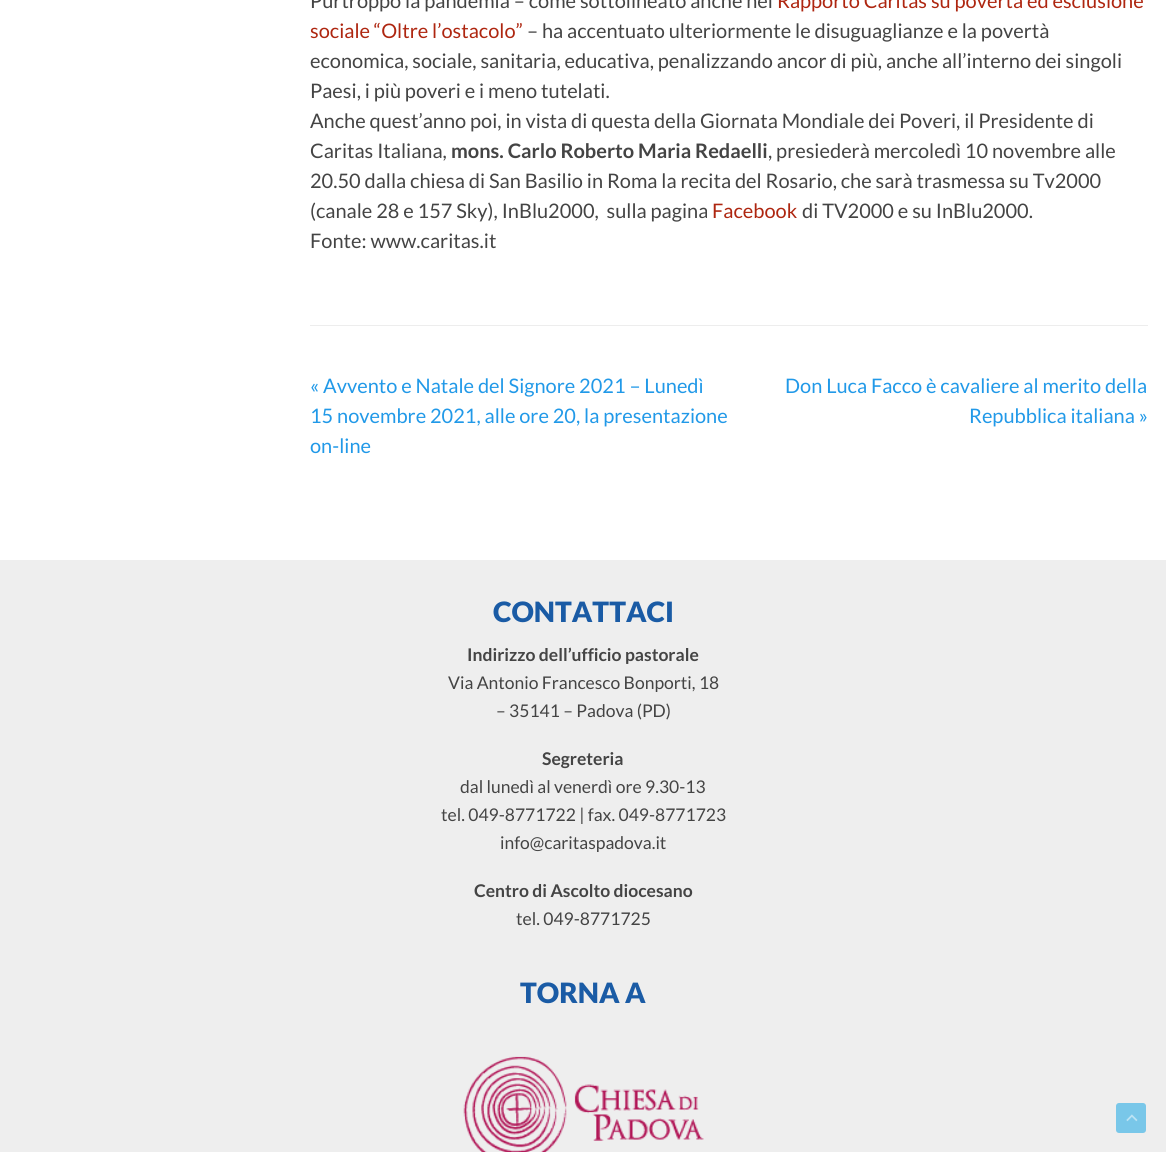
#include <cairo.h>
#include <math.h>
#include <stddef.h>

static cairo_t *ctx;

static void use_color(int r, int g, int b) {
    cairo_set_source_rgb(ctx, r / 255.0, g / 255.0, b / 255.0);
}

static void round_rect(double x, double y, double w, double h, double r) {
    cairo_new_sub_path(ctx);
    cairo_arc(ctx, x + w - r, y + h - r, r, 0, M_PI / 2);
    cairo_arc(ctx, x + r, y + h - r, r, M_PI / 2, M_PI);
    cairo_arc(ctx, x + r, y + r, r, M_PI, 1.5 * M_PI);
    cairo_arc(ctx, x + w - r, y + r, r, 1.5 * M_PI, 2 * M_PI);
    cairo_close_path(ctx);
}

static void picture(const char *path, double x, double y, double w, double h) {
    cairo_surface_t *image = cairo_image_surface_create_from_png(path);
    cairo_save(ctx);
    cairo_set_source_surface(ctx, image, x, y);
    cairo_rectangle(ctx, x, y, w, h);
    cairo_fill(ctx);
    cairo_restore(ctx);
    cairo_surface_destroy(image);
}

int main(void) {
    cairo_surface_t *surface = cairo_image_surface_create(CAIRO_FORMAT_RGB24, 1166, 1152);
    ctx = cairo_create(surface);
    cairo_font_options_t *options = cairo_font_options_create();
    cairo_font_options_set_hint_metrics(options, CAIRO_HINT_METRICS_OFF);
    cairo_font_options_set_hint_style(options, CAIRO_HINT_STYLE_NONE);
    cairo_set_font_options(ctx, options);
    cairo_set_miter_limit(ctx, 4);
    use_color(255, 255, 255);
    cairo_paint(ctx);
    use_color(237, 237, 237);
    cairo_rectangle(ctx, 310, 325, 838, 1);
    cairo_fill(ctx);
    cairo_select_font_face(ctx, "Lato", CAIRO_FONT_SLANT_NORMAL, CAIRO_FONT_WEIGHT_NORMAL);
    cairo_set_font_size(ctx, 20);
    use_color(68, 68, 68);
    cairo_move_to(ctx, 310, 8);
    cairo_show_text(ctx, "Purtroppo la pandemia – come sottolineato anche nel");
    use_color(174, 38, 16);
    cairo_move_to(ctx, 777, 8);
    cairo_show_text(ctx, "Rapporto Caritas su povertà ed esclusione");
    cairo_move_to(ctx, 310, 38);
    cairo_show_text(ctx, "sociale “Oltre l’ostacolo”");
    use_color(68, 68, 68);
    cairo_move_to(ctx, 527, 38);
    cairo_show_text(ctx, "– ha accentuato ulteriormente le disuguaglianze e la povertà");
    cairo_move_to(ctx, 310, 68);
    cairo_show_text(ctx, "economica, sociale, sanitaria, educativa, penalizzando ancor di più, anche all’interno dei singoli");
    cairo_move_to(ctx, 310, 98);
    cairo_show_text(ctx, "Paesi, i più poveri e i meno tutelati.");
    cairo_move_to(ctx, 310, 128);
    cairo_show_text(ctx, "Anche quest’anno poi, in vista di questa della Giornata Mondiale dei Poveri, il Presidente di");
    cairo_move_to(ctx, 310, 158);
    cairo_show_text(ctx, "Caritas Italiana,");
    cairo_select_font_face(ctx, "Lato", CAIRO_FONT_SLANT_NORMAL, CAIRO_FONT_WEIGHT_BOLD);
    cairo_move_to(ctx, 451, 158);
    cairo_show_text(ctx, "mons. Carlo Roberto Maria Redaelli");
    cairo_select_font_face(ctx, "Lato", CAIRO_FONT_SLANT_NORMAL, CAIRO_FONT_WEIGHT_NORMAL);
    cairo_move_to(ctx, 768, 158);
    cairo_show_text(ctx, ", presiederà mercoledì 10 novembre alle");
    cairo_move_to(ctx, 310, 188);
    cairo_show_text(ctx, "20.50 dalla chiesa di San Basilio in Roma la recita del Rosario, che sarà trasmessa su Tv2000");
    cairo_move_to(ctx, 310, 218);
    cairo_show_text(ctx, "(canale 28 e 157 Sky), InBlu2000,  sulla pagina");
    use_color(174, 38, 16);
    cairo_move_to(ctx, 712, 218);
    cairo_show_text(ctx, "Facebook");
    use_color(68, 68, 68);
    cairo_move_to(ctx, 802, 218);
    cairo_show_text(ctx, "di TV2000 e su InBlu2000.");
    cairo_move_to(ctx, 310, 248);
    cairo_show_text(ctx, "Fonte: www.caritas.it");
    use_color(33, 153, 232);
    cairo_move_to(ctx, 310, 393);
    cairo_show_text(ctx, "« Avvento e Natale del Signore 2021 – Lunedì");
    cairo_move_to(ctx, 310, 423);
    cairo_show_text(ctx, "15 novembre 2021, alle ore 20, la presentazione");
    cairo_move_to(ctx, 310, 453);
    cairo_show_text(ctx, "on-line");
    cairo_move_to(ctx, 785, 393);
    cairo_show_text(ctx, "Don Luca Facco è cavaliere al merito della");
    cairo_move_to(ctx, 969, 423);
    cairo_show_text(ctx, "Repubblica italiana »");
    use_color(238, 238, 238);
    cairo_rectangle(ctx, 0, 560, 1166, 592);
    cairo_fill(ctx);
    cairo_select_font_face(ctx, "Lato Black", CAIRO_FONT_SLANT_NORMAL, CAIRO_FONT_WEIGHT_NORMAL);
    cairo_set_font_size(ctx, 28);
    use_color(26, 91, 165);
    cairo_move_to(ctx, 493, 622);
    cairo_show_text(ctx, "CONTATTACI");
    cairo_select_font_face(ctx, "Lato", CAIRO_FONT_SLANT_NORMAL, CAIRO_FONT_WEIGHT_BOLD);
    cairo_set_font_size(ctx, 17.5);
    use_color(68, 68, 68);
    cairo_move_to(ctx, 467, 661);
    cairo_show_text(ctx, "Indirizzo dell’ufficio pastorale");
    cairo_select_font_face(ctx, "Lato", CAIRO_FONT_SLANT_NORMAL, CAIRO_FONT_WEIGHT_NORMAL);
    cairo_move_to(ctx, 448, 689);
    cairo_show_text(ctx, "Via Antonio Francesco Bonporti, 18");
    cairo_move_to(ctx, 496, 717);
    cairo_show_text(ctx, "– 35141 – Padova (PD)");
    cairo_select_font_face(ctx, "Lato", CAIRO_FONT_SLANT_NORMAL, CAIRO_FONT_WEIGHT_BOLD);
    cairo_move_to(ctx, 542, 765);
    cairo_show_text(ctx, "Segreteria");
    cairo_select_font_face(ctx, "Lato", CAIRO_FONT_SLANT_NORMAL, CAIRO_FONT_WEIGHT_NORMAL);
    cairo_move_to(ctx, 460, 793);
    cairo_show_text(ctx, "dal lunedì al venerdì ore 9.30-13");
    cairo_move_to(ctx, 441, 821);
    cairo_show_text(ctx, "tel. 049-8771722 | fax. 049-8771723");
    cairo_move_to(ctx, 500, 849);
    cairo_show_text(ctx, "info@caritaspadova.it");
    cairo_select_font_face(ctx, "Lato", CAIRO_FONT_SLANT_NORMAL, CAIRO_FONT_WEIGHT_BOLD);
    cairo_move_to(ctx, 474, 897);
    cairo_show_text(ctx, "Centro di Ascolto diocesano");
    cairo_select_font_face(ctx, "Lato", CAIRO_FONT_SLANT_NORMAL, CAIRO_FONT_WEIGHT_NORMAL);
    cairo_move_to(ctx, 516, 925);
    cairo_show_text(ctx, "tel. 049-8771725");
    cairo_select_font_face(ctx, "Lato Black", CAIRO_FONT_SLANT_NORMAL, CAIRO_FONT_WEIGHT_NORMAL);
    cairo_set_font_size(ctx, 28);
    use_color(26, 91, 165);
    cairo_move_to(ctx, 520, 1003);
    cairo_show_text(ctx, "TORNA A");
    picture("img1.png", 463, 1056, 241, 96);
    use_color(121, 199, 233);
    round_rect(1116, 1103, 30, 30, 3);
    cairo_fill(ctx);
    picture("img2.png", 1126, 1114, 12, 8);
    cairo_surface_write_to_png(surface, "result.png");
    cairo_font_options_destroy(options);
    cairo_destroy(ctx);
    cairo_surface_destroy(surface);
    return 0;
}
